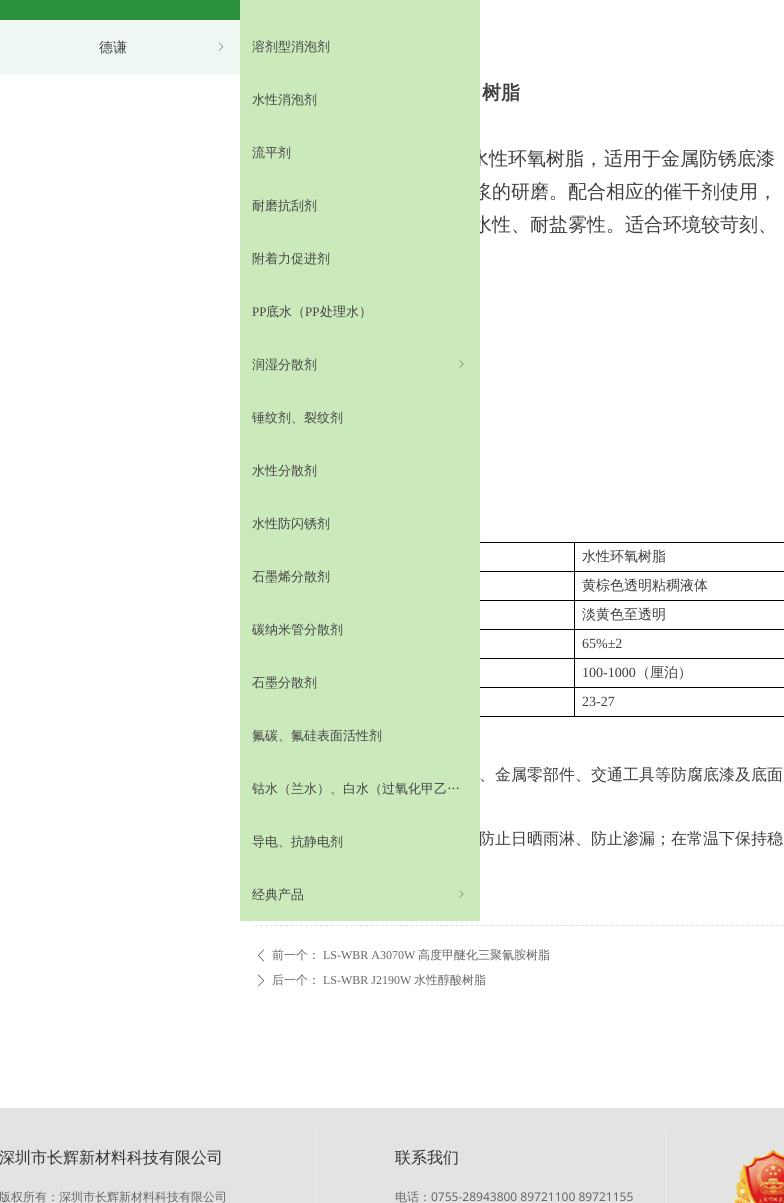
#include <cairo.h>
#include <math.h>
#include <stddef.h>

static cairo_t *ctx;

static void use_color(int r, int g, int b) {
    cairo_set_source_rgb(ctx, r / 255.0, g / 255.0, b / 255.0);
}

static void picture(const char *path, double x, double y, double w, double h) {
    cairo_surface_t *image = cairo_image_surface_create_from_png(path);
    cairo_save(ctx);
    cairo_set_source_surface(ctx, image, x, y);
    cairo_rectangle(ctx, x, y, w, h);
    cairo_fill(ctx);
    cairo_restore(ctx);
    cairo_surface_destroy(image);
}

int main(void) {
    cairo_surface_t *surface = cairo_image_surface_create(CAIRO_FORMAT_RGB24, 784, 1203);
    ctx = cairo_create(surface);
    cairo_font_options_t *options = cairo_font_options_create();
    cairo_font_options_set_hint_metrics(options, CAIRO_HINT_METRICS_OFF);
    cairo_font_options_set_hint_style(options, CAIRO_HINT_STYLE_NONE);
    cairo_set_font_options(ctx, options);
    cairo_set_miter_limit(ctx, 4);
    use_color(255, 255, 255);
    cairo_paint(ctx);
    use_color(238, 247, 242);
    cairo_rectangle(ctx, 0, 21, 240, 53);
    cairo_fill(ctx);
    cairo_select_font_face(ctx, "WenQuanYi Zen Hei Medium", CAIRO_FONT_SLANT_NORMAL, CAIRO_FONT_WEIGHT_NORMAL);
    cairo_set_font_size(ctx, 14);
    use_color(68, 68, 68);
    cairo_move_to(ctx, 99, 52);
    cairo_show_text(ctx, "德谦");
    picture("img1.png", 218, 42, 6, 9);
    use_color(243, 243, 243);
    cairo_rectangle(ctx, 0, 20, 240, 1);
    cairo_fill(ctx);
    use_color(43, 145, 61);
    cairo_rectangle(ctx, 0, 0, 240, 20);
    cairo_fill(ctx);
    cairo_set_font_size(ctx, 19);
    use_color(62, 62, 62);
    cairo_move_to(ctx, 470, 165);
    cairo_show_text(ctx, "水性环氧树脂，");
    cairo_move_to(ctx, 473, 198);
    cairo_show_text(ctx, "浆的研磨。配合相应的催干剂使用，");
    cairo_move_to(ctx, 473, 231);
    cairo_show_text(ctx, "水性、耐盐雾性。适合环境较苛刻、");
    cairo_set_font_size(ctx, 16);
    cairo_move_to(ctx, 479, 844);
    cairo_show_text(ctx, "防止日晒雨淋、防止渗漏；在常温下保持稳");
    use_color(202, 234, 187);
    cairo_rectangle(ctx, 240, 0, 240, 921);
    cairo_fill(ctx);
    cairo_set_font_size(ctx, 13);
    use_color(68, 68, 68);
    cairo_move_to(ctx, 252, 51);
    cairo_show_text(ctx, "溶剂型消泡剂");
    cairo_move_to(ctx, 252, 104);
    cairo_show_text(ctx, "水性消泡剂");
    cairo_move_to(ctx, 252, 157);
    cairo_show_text(ctx, "流平剂");
    cairo_move_to(ctx, 252, 210);
    cairo_show_text(ctx, "耐磨抗刮剂");
    cairo_move_to(ctx, 252, 263);
    cairo_show_text(ctx, "附着力促进剂");
    cairo_select_font_face(ctx, "Liberation Serif", CAIRO_FONT_SLANT_NORMAL, CAIRO_FONT_WEIGHT_NORMAL);
    cairo_move_to(ctx, 252, 316);
    cairo_show_text(ctx, "PP");
    cairo_select_font_face(ctx, "WenQuanYi Zen Hei Medium", CAIRO_FONT_SLANT_NORMAL, CAIRO_FONT_WEIGHT_NORMAL);
    cairo_move_to(ctx, 266, 316);
    cairo_show_text(ctx, "底水（");
    cairo_select_font_face(ctx, "Liberation Serif", CAIRO_FONT_SLANT_NORMAL, CAIRO_FONT_WEIGHT_NORMAL);
    cairo_move_to(ctx, 305, 316);
    cairo_show_text(ctx, "PP");
    cairo_select_font_face(ctx, "WenQuanYi Zen Hei Medium", CAIRO_FONT_SLANT_NORMAL, CAIRO_FONT_WEIGHT_NORMAL);
    cairo_move_to(ctx, 320, 316);
    cairo_show_text(ctx, "处理水）");
    cairo_move_to(ctx, 252, 369);
    cairo_show_text(ctx, "润湿分散剂");
    picture("img2.png", 459, 360, 5, 8);
    cairo_move_to(ctx, 252, 422);
    cairo_show_text(ctx, "锤纹剂、裂纹剂");
    cairo_move_to(ctx, 252, 475);
    cairo_show_text(ctx, "水性分散剂");
    cairo_move_to(ctx, 252, 528);
    cairo_show_text(ctx, "水性防闪锈剂");
    cairo_move_to(ctx, 252, 581);
    cairo_show_text(ctx, "石墨烯分散剂");
    cairo_move_to(ctx, 252, 634);
    cairo_show_text(ctx, "碳纳米管分散剂");
    cairo_move_to(ctx, 252, 687);
    cairo_show_text(ctx, "石墨分散剂");
    cairo_move_to(ctx, 252, 740);
    cairo_show_text(ctx, "氟碳、氟硅表面活性剂");
    cairo_move_to(ctx, 252, 793);
    cairo_show_text(ctx, "钴水（兰水）、白水（过氧化甲乙…");
    cairo_move_to(ctx, 252, 846);
    cairo_show_text(ctx, "导电、抗静电剂");
    cairo_move_to(ctx, 252, 899);
    cairo_show_text(ctx, "经典产品");
    picture("img2.png", 459, 890, 5, 8);
    cairo_select_font_face(ctx, "WenQuanYi Zen Hei", CAIRO_FONT_SLANT_NORMAL, CAIRO_FONT_WEIGHT_BOLD);
    cairo_set_font_size(ctx, 19);
    use_color(62, 62, 62);
    cairo_move_to(ctx, 482, 99);
    cairo_show_text(ctx, "树脂");
    cairo_select_font_face(ctx, "WenQuanYi Zen Hei Medium", CAIRO_FONT_SLANT_NORMAL, CAIRO_FONT_WEIGHT_NORMAL);
    cairo_move_to(ctx, 604, 165);
    cairo_show_text(ctx, "适用于金属防锈底漆");
    use_color(0, 0, 0);
    cairo_rectangle(ctx, 480, 542, 304, 1);
    cairo_fill(ctx);
    cairo_rectangle(ctx, 574, 716, 210, 1);
    cairo_fill(ctx);
    cairo_rectangle(ctx, 574, 687, 1, 30);
    cairo_fill(ctx);
    cairo_rectangle(ctx, 574, 687, 210, 1);
    cairo_fill(ctx);
    cairo_rectangle(ctx, 574, 658, 1, 30);
    cairo_fill(ctx);
    cairo_rectangle(ctx, 574, 658, 210, 1);
    cairo_fill(ctx);
    cairo_rectangle(ctx, 574, 629, 1, 30);
    cairo_fill(ctx);
    cairo_rectangle(ctx, 574, 629, 210, 1);
    cairo_fill(ctx);
    cairo_rectangle(ctx, 574, 600, 1, 30);
    cairo_fill(ctx);
    cairo_rectangle(ctx, 574, 600, 210, 1);
    cairo_fill(ctx);
    cairo_rectangle(ctx, 574, 571, 1, 30);
    cairo_fill(ctx);
    cairo_rectangle(ctx, 574, 571, 210, 1);
    cairo_fill(ctx);
    cairo_rectangle(ctx, 574, 542, 1, 30);
    cairo_fill(ctx);
    cairo_rectangle(ctx, 480, 571, 95, 1);
    cairo_fill(ctx);
    cairo_set_font_size(ctx, 14);
    use_color(62, 62, 62);
    cairo_move_to(ctx, 582, 561);
    cairo_show_text(ctx, "水性环氧树脂");
    use_color(0, 0, 0);
    cairo_rectangle(ctx, 480, 600, 95, 1);
    cairo_fill(ctx);
    use_color(62, 62, 62);
    cairo_move_to(ctx, 582, 590);
    cairo_show_text(ctx, "黄棕色透明粘稠液体");
    use_color(0, 0, 0);
    cairo_rectangle(ctx, 480, 629, 95, 1);
    cairo_fill(ctx);
    use_color(62, 62, 62);
    cairo_move_to(ctx, 582, 619);
    cairo_show_text(ctx, "淡黄色至透明");
    use_color(0, 0, 0);
    cairo_rectangle(ctx, 480, 658, 95, 1);
    cairo_fill(ctx);
    cairo_select_font_face(ctx, "Liberation Serif", CAIRO_FONT_SLANT_NORMAL, CAIRO_FONT_WEIGHT_NORMAL);
    use_color(62, 62, 62);
    cairo_move_to(ctx, 582, 648);
    cairo_show_text(ctx, "65%±2");
    use_color(0, 0, 0);
    cairo_rectangle(ctx, 480, 687, 95, 1);
    cairo_fill(ctx);
    use_color(62, 62, 62);
    cairo_move_to(ctx, 582, 677);
    cairo_show_text(ctx, "100-1000");
    cairo_select_font_face(ctx, "WenQuanYi Zen Hei Medium", CAIRO_FONT_SLANT_NORMAL, CAIRO_FONT_WEIGHT_NORMAL);
    cairo_move_to(ctx, 636, 677);
    cairo_show_text(ctx, "（厘泊）");
    use_color(0, 0, 0);
    cairo_rectangle(ctx, 480, 716, 95, 1);
    cairo_fill(ctx);
    cairo_select_font_face(ctx, "Liberation Serif", CAIRO_FONT_SLANT_NORMAL, CAIRO_FONT_WEIGHT_NORMAL);
    use_color(62, 62, 62);
    cairo_move_to(ctx, 582, 706);
    cairo_show_text(ctx, "23-27");
    cairo_select_font_face(ctx, "WenQuanYi Zen Hei Medium", CAIRO_FONT_SLANT_NORMAL, CAIRO_FONT_WEIGHT_NORMAL);
    cairo_set_font_size(ctx, 16);
    cairo_move_to(ctx, 479, 780);
    cairo_show_text(ctx, "、金属零部件、交通工具等防腐底漆及底面");
    cairo_new_path(ctx);
    cairo_move_to(ctx, 255, 925.5);
    cairo_line_to(ctx, 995, 925.5);
    use_color(221, 221, 221);
    cairo_set_line_width(ctx, 1);
    cairo_set_dash(ctx, (double[]){3, 2.01}, 2, 0);
    cairo_stroke(ctx);
    picture("img3.png", 257, 949, 8, 13);
    cairo_set_font_size(ctx, 12);
    use_color(102, 102, 102);
    cairo_move_to(ctx, 272, 959);
    cairo_show_text(ctx, "前一个：");
    cairo_select_font_face(ctx, "Liberation Serif", CAIRO_FONT_SLANT_NORMAL, CAIRO_FONT_WEIGHT_NORMAL);
    cairo_move_to(ctx, 323, 959);
    cairo_show_text(ctx, "LS-WBR A3070W");
    cairo_select_font_face(ctx, "WenQuanYi Zen Hei Medium", CAIRO_FONT_SLANT_NORMAL, CAIRO_FONT_WEIGHT_NORMAL);
    cairo_move_to(ctx, 418, 959);
    cairo_show_text(ctx, "高度甲醚化三聚氰胺树脂");
    picture("img4.png", 257, 974, 8, 13);
    cairo_move_to(ctx, 272, 984);
    cairo_show_text(ctx, "后一个：");
    cairo_select_font_face(ctx, "Liberation Serif", CAIRO_FONT_SLANT_NORMAL, CAIRO_FONT_WEIGHT_NORMAL);
    cairo_move_to(ctx, 323, 984);
    cairo_show_text(ctx, "LS-WBR J2190W");
    cairo_select_font_face(ctx, "WenQuanYi Zen Hei Medium", CAIRO_FONT_SLANT_NORMAL, CAIRO_FONT_WEIGHT_NORMAL);
    cairo_move_to(ctx, 414, 984);
    cairo_show_text(ctx, "水性醇酸树脂");
    use_color(227, 227, 227);
    cairo_rectangle(ctx, 0, 1108, 784, 95);
    cairo_fill(ctx);
    cairo_set_font_size(ctx, 16);
    use_color(51, 51, 51);
    cairo_move_to(ctx, -1, 1163);
    cairo_show_text(ctx, "深圳市长辉新材料科技有限公司");
    cairo_set_font_size(ctx, 12);
    use_color(102, 102, 102);
    cairo_move_to(ctx, -1, 1201);
    cairo_show_text(ctx, "版权所有：深圳市长辉新材料科技有限公司");
    use_color(234, 234, 234);
    cairo_rectangle(ctx, 316, 1130, 1, 73);
    cairo_fill(ctx);
    cairo_set_font_size(ctx, 16);
    use_color(51, 51, 51);
    cairo_move_to(ctx, 395, 1163);
    cairo_show_text(ctx, "联系我们");
    cairo_set_font_size(ctx, 12);
    use_color(102, 102, 102);
    cairo_move_to(ctx, 395, 1201);
    cairo_show_text(ctx, "电话：");
    cairo_select_font_face(ctx, "Noto Sans", CAIRO_FONT_SLANT_NORMAL, CAIRO_FONT_WEIGHT_NORMAL);
    cairo_move_to(ctx, 431, 1201);
    cairo_show_text(ctx, "0755-28943800 89721100 89721155");
    use_color(234, 234, 234);
    cairo_rectangle(ctx, 666, 1131, 1, 72);
    cairo_fill(ctx);
    picture("img5.png", 734, 1150, 50, 53);
    cairo_surface_write_to_png(surface, "result.png");
    cairo_font_options_destroy(options);
    cairo_destroy(ctx);
    cairo_surface_destroy(surface);
    return 0;
}
